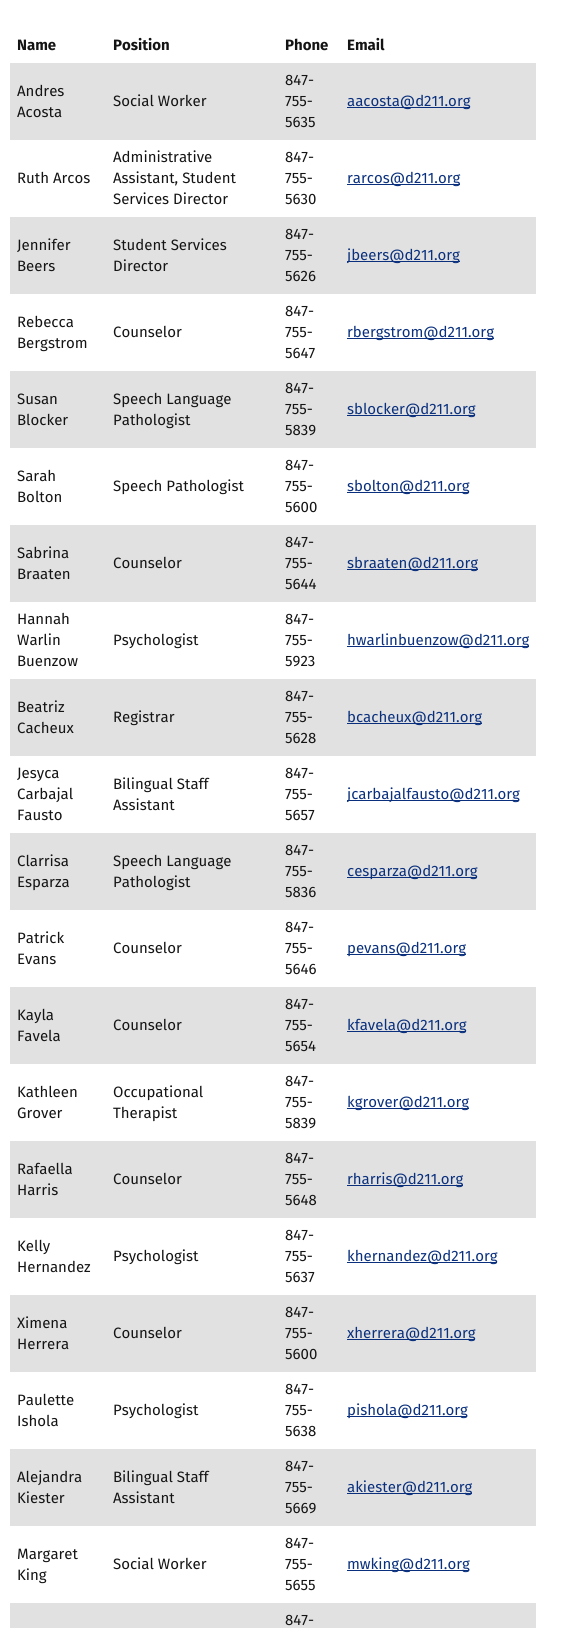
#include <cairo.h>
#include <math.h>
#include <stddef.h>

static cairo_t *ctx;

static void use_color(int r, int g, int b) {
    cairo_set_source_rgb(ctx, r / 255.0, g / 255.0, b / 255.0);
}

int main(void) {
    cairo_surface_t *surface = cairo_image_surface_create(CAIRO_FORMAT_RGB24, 566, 1628);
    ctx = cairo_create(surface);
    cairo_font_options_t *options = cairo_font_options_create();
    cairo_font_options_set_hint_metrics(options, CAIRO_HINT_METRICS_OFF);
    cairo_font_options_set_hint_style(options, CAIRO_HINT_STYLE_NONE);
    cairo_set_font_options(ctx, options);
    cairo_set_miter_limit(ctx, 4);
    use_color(255, 255, 255);
    cairo_paint(ctx);
    cairo_select_font_face(ctx, "Fira Sans", CAIRO_FONT_SLANT_NORMAL, CAIRO_FONT_WEIGHT_BOLD);
    cairo_set_font_size(ctx, 15);
    use_color(20, 20, 20);
    cairo_move_to(ctx, 17, 50);
    cairo_show_text(ctx, "Name");
    cairo_move_to(ctx, 113, 50);
    cairo_show_text(ctx, "Position");
    cairo_move_to(ctx, 285, 50);
    cairo_show_text(ctx, "Phone");
    cairo_move_to(ctx, 347, 50);
    cairo_show_text(ctx, "Email");
    use_color(225, 225, 225);
    cairo_rectangle(ctx, 10, 63, 526, 77);
    cairo_fill(ctx);
    cairo_select_font_face(ctx, "Fira Sans", CAIRO_FONT_SLANT_NORMAL, CAIRO_FONT_WEIGHT_NORMAL);
    use_color(20, 20, 20);
    cairo_move_to(ctx, 17, 96);
    cairo_show_text(ctx, "Andres");
    cairo_move_to(ctx, 17, 117);
    cairo_show_text(ctx, "Acosta");
    cairo_move_to(ctx, 113, 106);
    cairo_show_text(ctx, "Social Worker");
    cairo_move_to(ctx, 285, 85);
    cairo_show_text(ctx, "847-");
    cairo_move_to(ctx, 285, 106);
    cairo_show_text(ctx, "755-");
    cairo_move_to(ctx, 285, 127);
    cairo_show_text(ctx, "5635");
    use_color(10, 48, 125);
    cairo_rectangle(ctx, 347, 107, 123, 1);
    cairo_fill(ctx);
    cairo_move_to(ctx, 347, 106);
    cairo_show_text(ctx, "aacosta@d211.org");
    use_color(20, 20, 20);
    cairo_move_to(ctx, 17, 183);
    cairo_show_text(ctx, "Ruth Arcos");
    cairo_move_to(ctx, 113, 162);
    cairo_show_text(ctx, "Administrative");
    cairo_move_to(ctx, 113, 183);
    cairo_show_text(ctx, "Assistant, Student");
    cairo_move_to(ctx, 113, 204);
    cairo_show_text(ctx, "Services Director");
    cairo_move_to(ctx, 285, 162);
    cairo_show_text(ctx, "847-");
    cairo_move_to(ctx, 285, 183);
    cairo_show_text(ctx, "755-");
    cairo_move_to(ctx, 285, 204);
    cairo_show_text(ctx, "5630");
    use_color(10, 48, 125);
    cairo_rectangle(ctx, 347, 184, 113, 1);
    cairo_fill(ctx);
    cairo_move_to(ctx, 347, 183);
    cairo_show_text(ctx, "rarcos@d211.org");
    use_color(225, 225, 225);
    cairo_rectangle(ctx, 10, 217, 526, 77);
    cairo_fill(ctx);
    use_color(20, 20, 20);
    cairo_move_to(ctx, 17, 250);
    cairo_show_text(ctx, "Jennifer");
    cairo_move_to(ctx, 17, 271);
    cairo_show_text(ctx, "Beers");
    cairo_move_to(ctx, 113, 250);
    cairo_show_text(ctx, "Student Services");
    cairo_move_to(ctx, 113, 271);
    cairo_show_text(ctx, "Director");
    cairo_move_to(ctx, 285, 239);
    cairo_show_text(ctx, "847-");
    cairo_move_to(ctx, 285, 260);
    cairo_show_text(ctx, "755-");
    cairo_move_to(ctx, 285, 281);
    cairo_show_text(ctx, "5626");
    use_color(10, 48, 125);
    cairo_rectangle(ctx, 347, 261, 113, 1);
    cairo_fill(ctx);
    cairo_move_to(ctx, 347, 260);
    cairo_show_text(ctx, "jbeers@d211.org");
    use_color(20, 20, 20);
    cairo_move_to(ctx, 17, 327);
    cairo_show_text(ctx, "Rebecca");
    cairo_move_to(ctx, 17, 348);
    cairo_show_text(ctx, "Bergstrom");
    cairo_move_to(ctx, 113, 337);
    cairo_show_text(ctx, "Counselor");
    cairo_move_to(ctx, 285, 316);
    cairo_show_text(ctx, "847-");
    cairo_move_to(ctx, 285, 337);
    cairo_show_text(ctx, "755-");
    cairo_move_to(ctx, 285, 358);
    cairo_show_text(ctx, "5647");
    use_color(10, 48, 125);
    cairo_rectangle(ctx, 347, 338, 147, 1);
    cairo_fill(ctx);
    cairo_move_to(ctx, 347, 337);
    cairo_show_text(ctx, "rbergstrom@d211.org");
    use_color(225, 225, 225);
    cairo_rectangle(ctx, 10, 371, 526, 77);
    cairo_fill(ctx);
    use_color(20, 20, 20);
    cairo_move_to(ctx, 17, 404);
    cairo_show_text(ctx, "Susan");
    cairo_move_to(ctx, 17, 425);
    cairo_show_text(ctx, "Blocker");
    cairo_move_to(ctx, 113, 404);
    cairo_show_text(ctx, "Speech Language");
    cairo_move_to(ctx, 113, 425);
    cairo_show_text(ctx, "Pathologist");
    cairo_move_to(ctx, 285, 393);
    cairo_show_text(ctx, "847-");
    cairo_move_to(ctx, 285, 414);
    cairo_show_text(ctx, "755-");
    cairo_move_to(ctx, 285, 435);
    cairo_show_text(ctx, "5839");
    use_color(10, 48, 125);
    cairo_rectangle(ctx, 347, 415, 128, 1);
    cairo_fill(ctx);
    cairo_move_to(ctx, 347, 414);
    cairo_show_text(ctx, "sblocker@d211.org");
    use_color(20, 20, 20);
    cairo_move_to(ctx, 17, 481);
    cairo_show_text(ctx, "Sarah");
    cairo_move_to(ctx, 17, 502);
    cairo_show_text(ctx, "Bolton");
    cairo_move_to(ctx, 113, 491);
    cairo_show_text(ctx, "Speech Pathologist");
    cairo_move_to(ctx, 285, 470);
    cairo_show_text(ctx, "847-");
    cairo_move_to(ctx, 285, 491);
    cairo_show_text(ctx, "755-");
    cairo_move_to(ctx, 285, 512);
    cairo_show_text(ctx, "5600");
    use_color(10, 48, 125);
    cairo_rectangle(ctx, 347, 492, 122, 1);
    cairo_fill(ctx);
    cairo_move_to(ctx, 347, 491);
    cairo_show_text(ctx, "sbolton@d211.org");
    use_color(225, 225, 225);
    cairo_rectangle(ctx, 10, 525, 526, 77);
    cairo_fill(ctx);
    use_color(20, 20, 20);
    cairo_move_to(ctx, 17, 558);
    cairo_show_text(ctx, "Sabrina");
    cairo_move_to(ctx, 17, 579);
    cairo_show_text(ctx, "Braaten");
    cairo_move_to(ctx, 113, 568);
    cairo_show_text(ctx, "Counselor");
    cairo_move_to(ctx, 285, 547);
    cairo_show_text(ctx, "847-");
    cairo_move_to(ctx, 285, 568);
    cairo_show_text(ctx, "755-");
    cairo_move_to(ctx, 285, 589);
    cairo_show_text(ctx, "5644");
    use_color(10, 48, 125);
    cairo_rectangle(ctx, 347, 569, 131, 1);
    cairo_fill(ctx);
    cairo_move_to(ctx, 347, 568);
    cairo_show_text(ctx, "sbraaten@d211.org");
    use_color(20, 20, 20);
    cairo_move_to(ctx, 17, 624);
    cairo_show_text(ctx, "Hannah");
    cairo_move_to(ctx, 17, 645);
    cairo_show_text(ctx, "Warlin");
    cairo_move_to(ctx, 17, 666);
    cairo_show_text(ctx, "Buenzow");
    cairo_move_to(ctx, 113, 645);
    cairo_show_text(ctx, "Psychologist");
    cairo_move_to(ctx, 285, 624);
    cairo_show_text(ctx, "847-");
    cairo_move_to(ctx, 285, 645);
    cairo_show_text(ctx, "755-");
    cairo_move_to(ctx, 285, 666);
    cairo_show_text(ctx, "5923");
    use_color(10, 48, 125);
    cairo_rectangle(ctx, 347, 646, 182, 1);
    cairo_fill(ctx);
    cairo_move_to(ctx, 347, 645);
    cairo_show_text(ctx, "hwarlinbuenzow@d211.org");
    use_color(225, 225, 225);
    cairo_rectangle(ctx, 10, 679, 526, 77);
    cairo_fill(ctx);
    use_color(20, 20, 20);
    cairo_move_to(ctx, 17, 712);
    cairo_show_text(ctx, "Beatriz");
    cairo_move_to(ctx, 17, 733);
    cairo_show_text(ctx, "Cacheux");
    cairo_move_to(ctx, 113, 722);
    cairo_show_text(ctx, "Registrar");
    cairo_move_to(ctx, 285, 701);
    cairo_show_text(ctx, "847-");
    cairo_move_to(ctx, 285, 722);
    cairo_show_text(ctx, "755-");
    cairo_move_to(ctx, 285, 743);
    cairo_show_text(ctx, "5628");
    use_color(10, 48, 125);
    cairo_rectangle(ctx, 347, 723, 135, 1);
    cairo_fill(ctx);
    cairo_move_to(ctx, 347, 722);
    cairo_show_text(ctx, "bcacheux@d211.org");
    use_color(20, 20, 20);
    cairo_move_to(ctx, 17, 778);
    cairo_show_text(ctx, "Jesyca");
    cairo_move_to(ctx, 17, 799);
    cairo_show_text(ctx, "Carbajal");
    cairo_move_to(ctx, 17, 820);
    cairo_show_text(ctx, "Fausto");
    cairo_move_to(ctx, 113, 789);
    cairo_show_text(ctx, "Bilingual Staff");
    cairo_move_to(ctx, 113, 810);
    cairo_show_text(ctx, "Assistant");
    cairo_move_to(ctx, 285, 778);
    cairo_show_text(ctx, "847-");
    cairo_move_to(ctx, 285, 799);
    cairo_show_text(ctx, "755-");
    cairo_move_to(ctx, 285, 820);
    cairo_show_text(ctx, "5657");
    use_color(10, 48, 125);
    cairo_rectangle(ctx, 347, 800, 172, 1);
    cairo_fill(ctx);
    cairo_move_to(ctx, 347, 799);
    cairo_show_text(ctx, "jcarbajalfausto@d211.org");
    use_color(225, 225, 225);
    cairo_rectangle(ctx, 10, 833, 526, 77);
    cairo_fill(ctx);
    use_color(20, 20, 20);
    cairo_move_to(ctx, 17, 866);
    cairo_show_text(ctx, "Clarrisa");
    cairo_move_to(ctx, 17, 887);
    cairo_show_text(ctx, "Esparza");
    cairo_move_to(ctx, 113, 866);
    cairo_show_text(ctx, "Speech Language");
    cairo_move_to(ctx, 113, 887);
    cairo_show_text(ctx, "Pathologist");
    cairo_move_to(ctx, 285, 855);
    cairo_show_text(ctx, "847-");
    cairo_move_to(ctx, 285, 876);
    cairo_show_text(ctx, "755-");
    cairo_move_to(ctx, 285, 897);
    cairo_show_text(ctx, "5836");
    use_color(10, 48, 125);
    cairo_rectangle(ctx, 347, 877, 130, 1);
    cairo_fill(ctx);
    cairo_move_to(ctx, 347, 876);
    cairo_show_text(ctx, "cesparza@d211.org");
    use_color(20, 20, 20);
    cairo_move_to(ctx, 17, 943);
    cairo_show_text(ctx, "Patrick");
    cairo_move_to(ctx, 17, 964);
    cairo_show_text(ctx, "Evans");
    cairo_move_to(ctx, 113, 953);
    cairo_show_text(ctx, "Counselor");
    cairo_move_to(ctx, 285, 932);
    cairo_show_text(ctx, "847-");
    cairo_move_to(ctx, 285, 953);
    cairo_show_text(ctx, "755-");
    cairo_move_to(ctx, 285, 974);
    cairo_show_text(ctx, "5646");
    use_color(10, 48, 125);
    cairo_rectangle(ctx, 347, 954, 119, 1);
    cairo_fill(ctx);
    cairo_move_to(ctx, 347, 953);
    cairo_show_text(ctx, "pevans@d211.org");
    use_color(225, 225, 225);
    cairo_rectangle(ctx, 10, 987, 526, 77);
    cairo_fill(ctx);
    use_color(20, 20, 20);
    cairo_move_to(ctx, 17, 1020);
    cairo_show_text(ctx, "Kayla");
    cairo_move_to(ctx, 17, 1041);
    cairo_show_text(ctx, "Favela");
    cairo_move_to(ctx, 113, 1030);
    cairo_show_text(ctx, "Counselor");
    cairo_move_to(ctx, 285, 1009);
    cairo_show_text(ctx, "847-");
    cairo_move_to(ctx, 285, 1030);
    cairo_show_text(ctx, "755-");
    cairo_move_to(ctx, 285, 1051);
    cairo_show_text(ctx, "5654");
    use_color(10, 48, 125);
    cairo_rectangle(ctx, 347, 1031, 119, 1);
    cairo_fill(ctx);
    cairo_move_to(ctx, 347, 1030);
    cairo_show_text(ctx, "kfavela@d211.org");
    use_color(20, 20, 20);
    cairo_move_to(ctx, 17, 1097);
    cairo_show_text(ctx, "Kathleen");
    cairo_move_to(ctx, 17, 1118);
    cairo_show_text(ctx, "Grover");
    cairo_move_to(ctx, 113, 1097);
    cairo_show_text(ctx, "Occupational");
    cairo_move_to(ctx, 113, 1118);
    cairo_show_text(ctx, "Therapist");
    cairo_move_to(ctx, 285, 1086);
    cairo_show_text(ctx, "847-");
    cairo_move_to(ctx, 285, 1107);
    cairo_show_text(ctx, "755-");
    cairo_move_to(ctx, 285, 1128);
    cairo_show_text(ctx, "5839");
    use_color(10, 48, 125);
    cairo_rectangle(ctx, 347, 1108, 122, 1);
    cairo_fill(ctx);
    cairo_move_to(ctx, 347, 1107);
    cairo_show_text(ctx, "kgrover@d211.org");
    use_color(225, 225, 225);
    cairo_rectangle(ctx, 10, 1141, 526, 77);
    cairo_fill(ctx);
    use_color(20, 20, 20);
    cairo_move_to(ctx, 17, 1174);
    cairo_show_text(ctx, "Rafaella");
    cairo_move_to(ctx, 17, 1195);
    cairo_show_text(ctx, "Harris");
    cairo_move_to(ctx, 113, 1184);
    cairo_show_text(ctx, "Counselor");
    cairo_move_to(ctx, 285, 1163);
    cairo_show_text(ctx, "847-");
    cairo_move_to(ctx, 285, 1184);
    cairo_show_text(ctx, "755-");
    cairo_move_to(ctx, 285, 1205);
    cairo_show_text(ctx, "5648");
    use_color(10, 48, 125);
    cairo_rectangle(ctx, 347, 1185, 116, 1);
    cairo_fill(ctx);
    cairo_move_to(ctx, 347, 1184);
    cairo_show_text(ctx, "rharris@d211.org");
    use_color(20, 20, 20);
    cairo_move_to(ctx, 17, 1251);
    cairo_show_text(ctx, "Kelly");
    cairo_move_to(ctx, 17, 1272);
    cairo_show_text(ctx, "Hernandez");
    cairo_move_to(ctx, 113, 1261);
    cairo_show_text(ctx, "Psychologist");
    cairo_move_to(ctx, 285, 1240);
    cairo_show_text(ctx, "847-");
    cairo_move_to(ctx, 285, 1261);
    cairo_show_text(ctx, "755-");
    cairo_move_to(ctx, 285, 1282);
    cairo_show_text(ctx, "5637");
    use_color(10, 48, 125);
    cairo_rectangle(ctx, 347, 1262, 150, 1);
    cairo_fill(ctx);
    cairo_move_to(ctx, 347, 1261);
    cairo_show_text(ctx, "khernandez@d211.org");
    use_color(225, 225, 225);
    cairo_rectangle(ctx, 10, 1295, 526, 77);
    cairo_fill(ctx);
    use_color(20, 20, 20);
    cairo_move_to(ctx, 17, 1328);
    cairo_show_text(ctx, "Ximena");
    cairo_move_to(ctx, 17, 1349);
    cairo_show_text(ctx, "Herrera");
    cairo_move_to(ctx, 113, 1338);
    cairo_show_text(ctx, "Counselor");
    cairo_move_to(ctx, 285, 1317);
    cairo_show_text(ctx, "847-");
    cairo_move_to(ctx, 285, 1338);
    cairo_show_text(ctx, "755-");
    cairo_move_to(ctx, 285, 1359);
    cairo_show_text(ctx, "5600");
    use_color(10, 48, 125);
    cairo_rectangle(ctx, 347, 1339, 128, 1);
    cairo_fill(ctx);
    cairo_move_to(ctx, 347, 1338);
    cairo_show_text(ctx, "xherrera@d211.org");
    use_color(20, 20, 20);
    cairo_move_to(ctx, 17, 1405);
    cairo_show_text(ctx, "Paulette");
    cairo_move_to(ctx, 17, 1426);
    cairo_show_text(ctx, "Ishola");
    cairo_move_to(ctx, 113, 1415);
    cairo_show_text(ctx, "Psychologist");
    cairo_move_to(ctx, 285, 1394);
    cairo_show_text(ctx, "847-");
    cairo_move_to(ctx, 285, 1415);
    cairo_show_text(ctx, "755-");
    cairo_move_to(ctx, 285, 1436);
    cairo_show_text(ctx, "5638");
    use_color(10, 48, 125);
    cairo_rectangle(ctx, 347, 1416, 120, 1);
    cairo_fill(ctx);
    cairo_move_to(ctx, 347, 1415);
    cairo_show_text(ctx, "pishola@d211.org");
    use_color(225, 225, 225);
    cairo_rectangle(ctx, 10, 1449, 526, 77);
    cairo_fill(ctx);
    use_color(20, 20, 20);
    cairo_move_to(ctx, 17, 1482);
    cairo_show_text(ctx, "Alejandra");
    cairo_move_to(ctx, 17, 1503);
    cairo_show_text(ctx, "Kiester");
    cairo_move_to(ctx, 113, 1482);
    cairo_show_text(ctx, "Bilingual Staff");
    cairo_move_to(ctx, 113, 1503);
    cairo_show_text(ctx, "Assistant");
    cairo_move_to(ctx, 285, 1471);
    cairo_show_text(ctx, "847-");
    cairo_move_to(ctx, 285, 1492);
    cairo_show_text(ctx, "755-");
    cairo_move_to(ctx, 285, 1513);
    cairo_show_text(ctx, "5669");
    use_color(10, 48, 125);
    cairo_rectangle(ctx, 347, 1493, 125, 1);
    cairo_fill(ctx);
    cairo_move_to(ctx, 347, 1492);
    cairo_show_text(ctx, "akiester@d211.org");
    use_color(20, 20, 20);
    cairo_move_to(ctx, 17, 1559);
    cairo_show_text(ctx, "Margaret");
    cairo_move_to(ctx, 17, 1580);
    cairo_show_text(ctx, "King");
    cairo_move_to(ctx, 113, 1569);
    cairo_show_text(ctx, "Social Worker");
    cairo_move_to(ctx, 285, 1548);
    cairo_show_text(ctx, "847-");
    cairo_move_to(ctx, 285, 1569);
    cairo_show_text(ctx, "755-");
    cairo_move_to(ctx, 285, 1590);
    cairo_show_text(ctx, "5655");
    use_color(10, 48, 125);
    cairo_rectangle(ctx, 347, 1570, 122, 1);
    cairo_fill(ctx);
    cairo_move_to(ctx, 347, 1569);
    cairo_show_text(ctx, "mwking@d211.org");
    use_color(225, 225, 225);
    cairo_rectangle(ctx, 10, 1603, 526, 25);
    cairo_fill(ctx);
    use_color(20, 20, 20);
    cairo_move_to(ctx, 285, 1625);
    cairo_show_text(ctx, "847-");
    cairo_surface_write_to_png(surface, "result.png");
    cairo_font_options_destroy(options);
    cairo_destroy(ctx);
    cairo_surface_destroy(surface);
    return 0;
}
